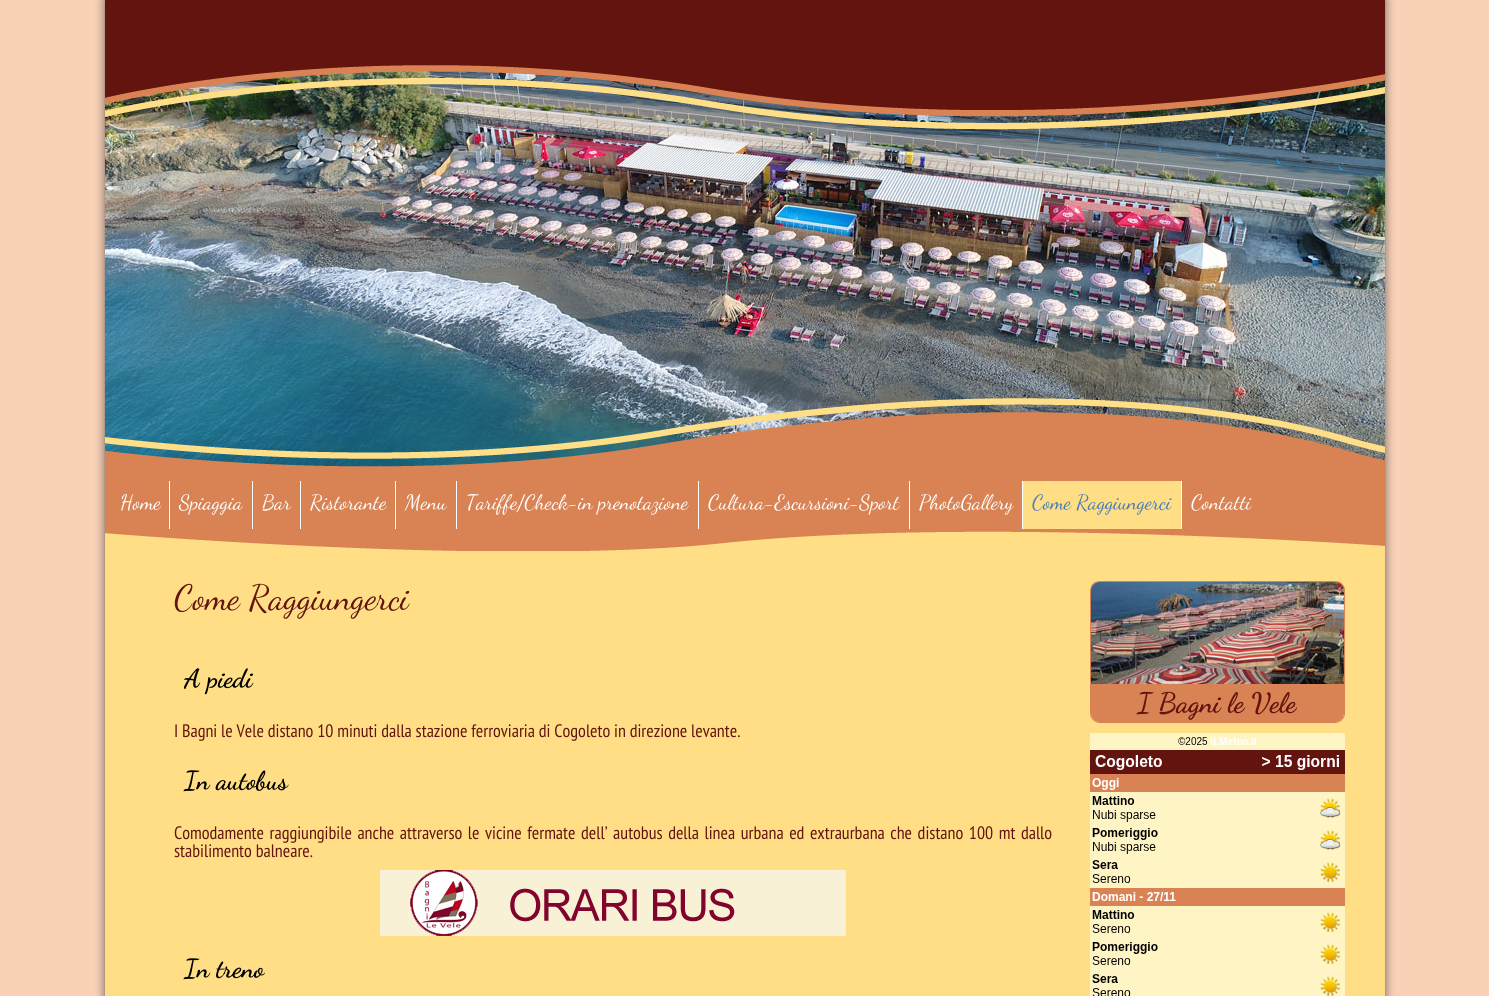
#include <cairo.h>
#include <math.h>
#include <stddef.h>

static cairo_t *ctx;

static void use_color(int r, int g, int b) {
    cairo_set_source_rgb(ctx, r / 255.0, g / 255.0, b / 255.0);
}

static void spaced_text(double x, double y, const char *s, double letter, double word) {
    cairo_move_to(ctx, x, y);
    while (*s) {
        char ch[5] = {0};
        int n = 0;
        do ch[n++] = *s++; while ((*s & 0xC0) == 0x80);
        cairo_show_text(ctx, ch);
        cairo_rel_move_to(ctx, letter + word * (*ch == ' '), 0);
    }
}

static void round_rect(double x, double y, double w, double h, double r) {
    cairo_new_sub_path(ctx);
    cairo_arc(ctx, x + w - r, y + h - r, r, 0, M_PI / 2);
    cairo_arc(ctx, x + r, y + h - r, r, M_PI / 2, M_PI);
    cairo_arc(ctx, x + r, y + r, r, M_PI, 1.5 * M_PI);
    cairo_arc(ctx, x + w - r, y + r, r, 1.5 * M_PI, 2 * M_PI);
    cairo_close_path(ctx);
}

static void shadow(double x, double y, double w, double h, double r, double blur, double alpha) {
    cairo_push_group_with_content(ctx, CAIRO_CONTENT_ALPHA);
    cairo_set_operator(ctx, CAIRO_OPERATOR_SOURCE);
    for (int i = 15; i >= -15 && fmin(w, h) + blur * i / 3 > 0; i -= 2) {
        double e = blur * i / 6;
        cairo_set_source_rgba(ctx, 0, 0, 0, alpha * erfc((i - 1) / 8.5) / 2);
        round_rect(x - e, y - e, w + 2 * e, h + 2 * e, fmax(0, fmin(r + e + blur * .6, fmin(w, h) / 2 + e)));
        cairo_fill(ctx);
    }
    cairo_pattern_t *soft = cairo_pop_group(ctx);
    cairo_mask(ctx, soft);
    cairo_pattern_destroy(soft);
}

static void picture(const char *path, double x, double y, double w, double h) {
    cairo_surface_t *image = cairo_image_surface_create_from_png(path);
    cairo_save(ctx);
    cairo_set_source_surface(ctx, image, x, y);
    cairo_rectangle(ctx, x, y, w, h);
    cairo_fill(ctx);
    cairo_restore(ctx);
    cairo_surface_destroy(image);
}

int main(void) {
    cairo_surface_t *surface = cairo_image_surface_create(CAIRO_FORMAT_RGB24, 1489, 996);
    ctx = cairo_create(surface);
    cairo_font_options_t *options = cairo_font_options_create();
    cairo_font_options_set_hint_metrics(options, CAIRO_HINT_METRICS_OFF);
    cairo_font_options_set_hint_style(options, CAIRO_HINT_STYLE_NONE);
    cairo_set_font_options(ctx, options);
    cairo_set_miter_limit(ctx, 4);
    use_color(249, 209, 183);
    cairo_paint(ctx);
    use_color(50, 50, 50);
    shadow(105, 0, 1280, 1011, 0, 5, 0.75);
    use_color(255, 222, 134);
    cairo_rectangle(ctx, 105, 531, 1280, 465);
    cairo_fill(ctx);
    picture("img2.png", 105, 71, 1280, 396);
    picture("img1.png", 105, 0, 1280, 130);
    picture("img3.png", 105, 398, 1280, 153);
    cairo_select_font_face(ctx, "Dancing Script", CAIRO_FONT_SLANT_NORMAL, CAIRO_FONT_WEIGHT_NORMAL);
    cairo_set_font_size(ctx, 20.75);
    use_color(255, 255, 255);
    cairo_move_to(ctx, 120, 509);
    cairo_show_text(ctx, "Home");
    cairo_rectangle(ctx, 169, 481, 1, 48);
    cairo_fill(ctx);
    cairo_move_to(ctx, 179, 509);
    cairo_show_text(ctx, "Spiaggia");
    cairo_rectangle(ctx, 252, 481, 1, 48);
    cairo_fill(ctx);
    cairo_move_to(ctx, 262, 509);
    cairo_show_text(ctx, "Bar");
    cairo_rectangle(ctx, 300, 481, 1, 48);
    cairo_fill(ctx);
    cairo_move_to(ctx, 310, 509);
    cairo_show_text(ctx, "Ristorante");
    cairo_rectangle(ctx, 395, 481, 1, 48);
    cairo_fill(ctx);
    cairo_move_to(ctx, 405, 509);
    cairo_show_text(ctx, "Menu");
    cairo_rectangle(ctx, 456, 481, 1, 48);
    cairo_fill(ctx);
    cairo_move_to(ctx, 466, 509);
    cairo_show_text(ctx, "Tariffe/Check-in prenotazione");
    cairo_rectangle(ctx, 698, 481, 1, 48);
    cairo_fill(ctx);
    cairo_move_to(ctx, 708, 509);
    cairo_show_text(ctx, "Cultura-Escursioni-Sport");
    cairo_rectangle(ctx, 909, 481, 1, 48);
    cairo_fill(ctx);
    cairo_move_to(ctx, 919, 509);
    cairo_show_text(ctx, "PhotoGallery");
    use_color(255, 222, 134);
    cairo_rectangle(ctx, 1023, 481, 158, 48);
    cairo_fill(ctx);
    use_color(255, 255, 255);
    cairo_rectangle(ctx, 1022, 481, 1, 48);
    cairo_fill(ctx);
    use_color(70, 125, 189);
    cairo_move_to(ctx, 1032, 509);
    cairo_show_text(ctx, "Come Raggiungerci");
    use_color(255, 255, 255);
    cairo_rectangle(ctx, 1181, 481, 1, 48);
    cairo_fill(ctx);
    cairo_move_to(ctx, 1191, 509);
    cairo_show_text(ctx, "Contatti");
    cairo_set_font_size(ctx, 35);
    use_color(100, 20, 14);
    cairo_move_to(ctx, 174, 609);
    cairo_show_text(ctx, "Come Raggiungerci");
    cairo_select_font_face(ctx, "Dancing Script", CAIRO_FONT_SLANT_NORMAL, CAIRO_FONT_WEIGHT_BOLD);
    cairo_set_font_size(ctx, 26);
    use_color(0, 0, 0);
    cairo_move_to(ctx, 184, 687);
    cairo_show_text(ctx, "A piedi");
    cairo_select_font_face(ctx, "PT Sans Narrow", CAIRO_FONT_SLANT_NORMAL, CAIRO_FONT_WEIGHT_NORMAL);
    cairo_set_font_size(ctx, 18);
    use_color(100, 20, 14);
    cairo_move_to(ctx, 174, 737);
    cairo_show_text(ctx, "I Bagni le Vele distano 10 minuti dalla stazione ferroviaria di Cogoleto in direzione levante.");
    cairo_select_font_face(ctx, "Dancing Script", CAIRO_FONT_SLANT_NORMAL, CAIRO_FONT_WEIGHT_BOLD);
    cairo_set_font_size(ctx, 26);
    use_color(0, 0, 0);
    cairo_move_to(ctx, 184, 789);
    cairo_show_text(ctx, "In autobus");
    cairo_select_font_face(ctx, "PT Sans Narrow", CAIRO_FONT_SLANT_NORMAL, CAIRO_FONT_WEIGHT_NORMAL);
    cairo_set_font_size(ctx, 18);
    use_color(100, 20, 14);
    spaced_text(174, 839, "Comodamente raggiungibile anche attraverso le vicine fermate dell’ autobus della linea urbana ed extraurbana che distano 100 mt dallo", 0, 1.75);
    cairo_move_to(ctx, 174, 857);
    cairo_show_text(ctx, "stabilimento balneare.");
    picture("img4.png", 380, 870, 466, 66);
    cairo_select_font_face(ctx, "Dancing Script", CAIRO_FONT_SLANT_NORMAL, CAIRO_FONT_WEIGHT_BOLD);
    cairo_set_font_size(ctx, 26);
    use_color(0, 0, 0);
    cairo_move_to(ctx, 184, 977);
    cairo_show_text(ctx, "In treno");
    picture("img5.png", 1091, 582, 254, 102);
    round_rect(1090.5, 581.5, 254, 141, 9.5);
    use_color(217, 131, 84);
    cairo_set_line_width(ctx, 1);
    cairo_stroke(ctx);
    cairo_new_path(ctx);
    cairo_move_to(ctx, 1091, 684);
    cairo_line_to(ctx, 1344, 684);
    cairo_line_to(ctx, 1344, 713);
    cairo_curve_to(ctx, 1344, 718, 1340, 722, 1335, 722);
    cairo_line_to(ctx, 1100, 722);
    cairo_curve_to(ctx, 1095, 722, 1091, 718, 1091, 713);
    cairo_close_path(ctx);
    cairo_fill(ctx);
    cairo_set_font_size(ctx, 28);
    use_color(100, 20, 14);
    cairo_move_to(ctx, 1137, 712);
    cairo_show_text(ctx, "I Bagni le Vele");
    picture("img6.png", 1090, 733, 255, 263);
    cairo_surface_write_to_png(surface, "result.png");
    cairo_font_options_destroy(options);
    cairo_destroy(ctx);
    cairo_surface_destroy(surface);
    return 0;
}
